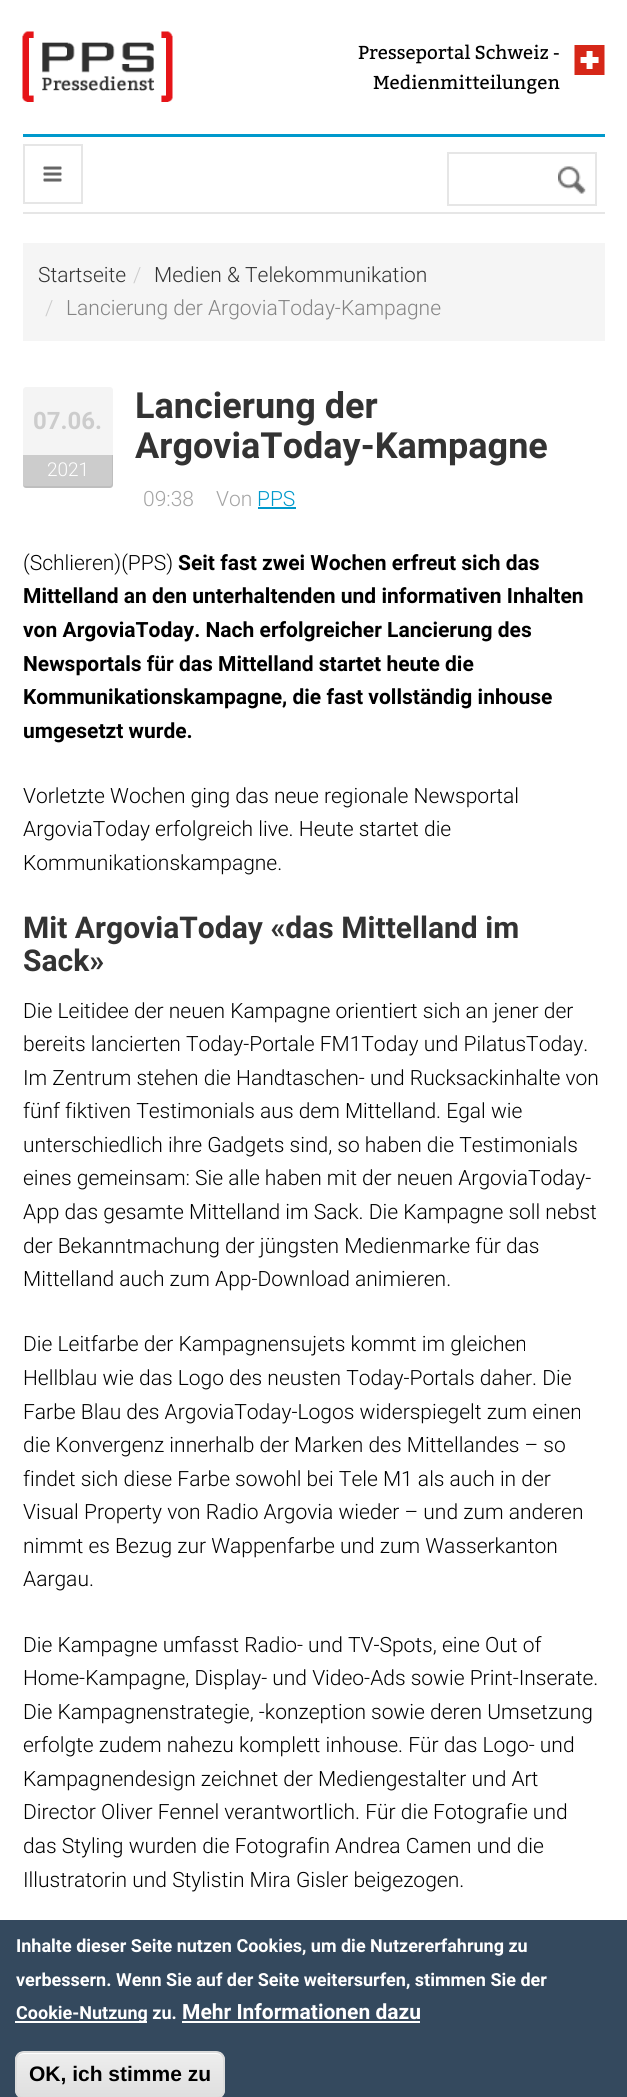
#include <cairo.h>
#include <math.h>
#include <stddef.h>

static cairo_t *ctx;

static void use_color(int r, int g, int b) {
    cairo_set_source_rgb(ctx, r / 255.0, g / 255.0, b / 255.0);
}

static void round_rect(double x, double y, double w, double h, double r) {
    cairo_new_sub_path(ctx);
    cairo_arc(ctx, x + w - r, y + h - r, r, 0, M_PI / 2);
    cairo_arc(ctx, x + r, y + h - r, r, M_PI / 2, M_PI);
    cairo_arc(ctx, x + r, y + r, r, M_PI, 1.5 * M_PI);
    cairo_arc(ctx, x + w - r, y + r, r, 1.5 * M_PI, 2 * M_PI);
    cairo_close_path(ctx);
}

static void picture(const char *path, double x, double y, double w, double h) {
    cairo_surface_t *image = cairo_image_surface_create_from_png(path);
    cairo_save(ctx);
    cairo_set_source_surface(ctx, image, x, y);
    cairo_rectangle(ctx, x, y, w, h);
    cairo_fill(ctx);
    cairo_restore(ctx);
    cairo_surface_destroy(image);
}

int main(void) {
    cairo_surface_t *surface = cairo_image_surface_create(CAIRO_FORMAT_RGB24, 627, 2097);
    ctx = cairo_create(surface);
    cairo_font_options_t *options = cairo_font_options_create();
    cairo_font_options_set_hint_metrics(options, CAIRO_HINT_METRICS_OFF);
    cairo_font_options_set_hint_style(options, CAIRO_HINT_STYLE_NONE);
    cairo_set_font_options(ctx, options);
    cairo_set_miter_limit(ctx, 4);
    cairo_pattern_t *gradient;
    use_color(255, 255, 255);
    cairo_paint(ctx);
    picture("img1.png", 22, 31, 151, 71);
    cairo_select_font_face(ctx, "Bitter", CAIRO_FONT_SLANT_NORMAL, CAIRO_FONT_WEIGHT_NORMAL);
    cairo_set_font_size(ctx, 18.75);
    use_color(0, 0, 0);
    cairo_move_to(ctx, 358, 59);
    cairo_show_text(ctx, "Presseportal Schweiz -");
    picture("img2.png", 574, 45, 31, 30);
    cairo_move_to(ctx, 373, 89);
    cairo_show_text(ctx, "Medienmitteilungen");
    use_color(0, 153, 204);
    cairo_rectangle(ctx, 23, 134, 582, 3);
    cairo_fill(ctx);
    use_color(230, 230, 230);
    cairo_rectangle(ctx, 23, 212, 582, 2);
    cairo_fill(ctx);
    cairo_rectangle(ctx, 24, 145, 58, 58);
    cairo_stroke(ctx);
    picture("img3.png", 43, 166, 19, 16);
    cairo_rectangle(ctx, 448, 153, 148, 52);
    cairo_stroke(ctx);
    picture("img4.png", 558, 166, 28, 28);
    use_color(245, 245, 245);
    cairo_rectangle(ctx, 23, 243, 582, 98);
    cairo_fill(ctx);
    cairo_select_font_face(ctx, "Roboto Light", CAIRO_FONT_SLANT_NORMAL, CAIRO_FONT_WEIGHT_NORMAL);
    cairo_set_font_size(ctx, 21);
    use_color(51, 51, 51);
    cairo_move_to(ctx, 38, 282);
    cairo_show_text(ctx, "Startseite");
    use_color(204, 204, 204);
    cairo_move_to(ctx, 133, 282);
    cairo_show_text(ctx, "/");
    use_color(51, 51, 51);
    cairo_move_to(ctx, 154, 282);
    cairo_show_text(ctx, "Medien & Telekommunikation");
    use_color(204, 204, 204);
    cairo_move_to(ctx, 45, 315);
    cairo_show_text(ctx, "/");
    use_color(132, 132, 132);
    cairo_move_to(ctx, 66, 315);
    cairo_show_text(ctx, "Lancierung der ArgoviaToday-Kampagne");
    use_color(244, 244, 244);
    cairo_new_path(ctx);
    cairo_move_to(ctx, 26, 387);
    cairo_line_to(ctx, 110, 387);
    cairo_curve_to(ctx, 111.5, 387, 113, 388.5, 113, 390);
    cairo_line_to(ctx, 113, 455);
    cairo_line_to(ctx, 23, 455);
    cairo_line_to(ctx, 23, 390);
    cairo_curve_to(ctx, 23, 388.5, 24.5, 387, 26, 387);
    cairo_close_path(ctx);
    cairo_fill(ctx);
    cairo_select_font_face(ctx, "Roboto", CAIRO_FONT_SLANT_NORMAL, CAIRO_FONT_WEIGHT_BOLD);
    cairo_set_font_size(ctx, 24);
    use_color(204, 204, 204);
    cairo_move_to(ctx, 33, 429);
    cairo_show_text(ctx, "07.06.");
    cairo_new_path(ctx);
    cairo_move_to(ctx, 23, 455);
    cairo_line_to(ctx, 113, 455);
    cairo_line_to(ctx, 113, 485);
    cairo_curve_to(ctx, 113, 486.5, 111.5, 488, 110, 488);
    cairo_line_to(ctx, 26, 488);
    cairo_curve_to(ctx, 24.5, 488, 23, 486.5, 23, 485);
    cairo_close_path(ctx);
    cairo_fill(ctx);
    cairo_set_source_rgba(ctx, 0, 0, 0, 0.07);
    cairo_new_path(ctx);
    cairo_move_to(ctx, 23, 485);
    cairo_curve_to(ctx, 23, 487, 24, 488, 26, 488);
    cairo_line_to(ctx, 110, 488);
    cairo_curve_to(ctx, 112, 488, 113, 487, 113, 485);
    cairo_line_to(ctx, 113, 455);
    cairo_line_to(ctx, 112, 455);
    cairo_line_to(ctx, 112, 483);
    cairo_curve_to(ctx, 112, 485, 111, 486, 110, 486);
    cairo_line_to(ctx, 26, 486);
    cairo_curve_to(ctx, 25, 486, 24, 486, 23, 485);
    cairo_close_path(ctx);
    cairo_fill(ctx);
    cairo_select_font_face(ctx, "Roboto Light", CAIRO_FONT_SLANT_NORMAL, CAIRO_FONT_WEIGHT_NORMAL);
    cairo_set_font_size(ctx, 19);
    use_color(255, 255, 255);
    cairo_move_to(ctx, 47, 476);
    cairo_show_text(ctx, "2021");
    cairo_select_font_face(ctx, "Roboto", CAIRO_FONT_SLANT_NORMAL, CAIRO_FONT_WEIGHT_BOLD);
    cairo_set_font_size(ctx, 36);
    use_color(51, 51, 51);
    cairo_move_to(ctx, 135, 418);
    cairo_show_text(ctx, "Lancierung der");
    cairo_move_to(ctx, 135, 458);
    cairo_show_text(ctx, "ArgoviaToday-Kampagne");
    cairo_select_font_face(ctx, "Roboto Light", CAIRO_FONT_SLANT_NORMAL, CAIRO_FONT_WEIGHT_NORMAL);
    cairo_set_font_size(ctx, 21);
    use_color(164, 164, 164);
    cairo_move_to(ctx, 143, 506);
    cairo_show_text(ctx, "09:38");
    cairo_move_to(ctx, 216, 506);
    cairo_show_text(ctx, "Von");
    use_color(0, 153, 204);
    cairo_move_to(ctx, 257, 506);
    cairo_show_text(ctx, "PPS");
    cairo_rectangle(ctx, 258, 507, 38, 2);
    cairo_fill(ctx);
    use_color(0, 0, 0);
    cairo_move_to(ctx, 23, 570);
    cairo_show_text(ctx, "(Schlieren)(PPS)");
    cairo_select_font_face(ctx, "Roboto", CAIRO_FONT_SLANT_NORMAL, CAIRO_FONT_WEIGHT_BOLD);
    cairo_move_to(ctx, 178, 570);
    cairo_show_text(ctx, "Seit fast zwei Wochen erfreut sich das");
    cairo_move_to(ctx, 23, 603);
    cairo_show_text(ctx, "Mittelland an den unterhaltenden und informativen Inhalten");
    cairo_move_to(ctx, 23, 637);
    cairo_show_text(ctx, "von ArgoviaToday. Nach erfolgreicher Lancierung des");
    cairo_move_to(ctx, 23, 671);
    cairo_show_text(ctx, "Newsportals für das Mittelland startet heute die");
    cairo_move_to(ctx, 23, 704);
    cairo_show_text(ctx, "Kommunikationskampagne, die fast vollständig inhouse");
    cairo_move_to(ctx, 23, 738);
    cairo_show_text(ctx, "umgesetzt wurde.");
    cairo_select_font_face(ctx, "Roboto Light", CAIRO_FONT_SLANT_NORMAL, CAIRO_FONT_WEIGHT_NORMAL);
    cairo_move_to(ctx, 23, 803);
    cairo_show_text(ctx, "Vorletzte Wochen ging das neue regionale Newsportal");
    cairo_move_to(ctx, 23, 836);
    cairo_show_text(ctx, "ArgoviaToday erfolgreich live. Heute startet die");
    cairo_move_to(ctx, 23, 870);
    cairo_show_text(ctx, "Kommunikationskampagne.");
    cairo_select_font_face(ctx, "Roboto", CAIRO_FONT_SLANT_NORMAL, CAIRO_FONT_WEIGHT_BOLD);
    cairo_set_font_size(ctx, 30);
    use_color(51, 51, 51);
    cairo_move_to(ctx, 23, 938);
    cairo_show_text(ctx, "Mit ArgoviaToday «das Mittelland im");
    cairo_move_to(ctx, 23, 971);
    cairo_show_text(ctx, "Sack»");
    cairo_select_font_face(ctx, "Roboto Light", CAIRO_FONT_SLANT_NORMAL, CAIRO_FONT_WEIGHT_NORMAL);
    cairo_set_font_size(ctx, 21);
    use_color(0, 0, 0);
    cairo_move_to(ctx, 23, 1018);
    cairo_show_text(ctx, "Die Leitidee der neuen Kampagne orientiert sich an jener der");
    cairo_move_to(ctx, 23, 1051);
    cairo_show_text(ctx, "bereits lancierten Today-Portale FM1Today und PilatusToday.");
    cairo_move_to(ctx, 23, 1085);
    cairo_show_text(ctx, "Im Zentrum stehen die Handtaschen- und Rucksackinhalte von");
    cairo_move_to(ctx, 23, 1118);
    cairo_show_text(ctx, "fünf fiktiven Testimonials aus dem Mittelland. Egal wie");
    cairo_move_to(ctx, 23, 1152);
    cairo_show_text(ctx, "unterschiedlich ihre Gadgets sind, so haben die Testimonials");
    cairo_move_to(ctx, 23, 1185);
    cairo_show_text(ctx, "eines gemeinsam: Sie alle haben mit der neuen ArgoviaToday-");
    cairo_move_to(ctx, 23, 1219);
    cairo_show_text(ctx, "App das gesamte Mittelland im Sack. Die Kampagne soll nebst");
    cairo_move_to(ctx, 23, 1253);
    cairo_show_text(ctx, "der Bekanntmachung der jüngsten Medienmarke für das");
    cairo_move_to(ctx, 23, 1286);
    cairo_show_text(ctx, "Mittelland auch zum App-Download animieren.");
    cairo_move_to(ctx, 23, 1351);
    cairo_show_text(ctx, "Die Leitfarbe der Kampagnensujets kommt im gleichen");
    cairo_move_to(ctx, 23, 1385);
    cairo_show_text(ctx, "Hellblau wie das Logo des neusten Today-Portals daher. Die");
    cairo_move_to(ctx, 23, 1419);
    cairo_show_text(ctx, "Farbe Blau des ArgoviaToday-Logos widerspiegelt zum einen");
    cairo_move_to(ctx, 23, 1452);
    cairo_show_text(ctx, "die Konvergenz innerhalb der Marken des Mittellandes – so");
    cairo_move_to(ctx, 23, 1486);
    cairo_show_text(ctx, "findet sich diese Farbe sowohl bei Tele M1 als auch in der");
    cairo_move_to(ctx, 23, 1519);
    cairo_show_text(ctx, "Visual Property von Radio Argovia wieder – und zum anderen");
    cairo_move_to(ctx, 23, 1553);
    cairo_show_text(ctx, "nimmt es Bezug zur Wappenfarbe und zum Wasserkanton");
    cairo_move_to(ctx, 23, 1586);
    cairo_show_text(ctx, "Aargau.");
    cairo_move_to(ctx, 23, 1652);
    cairo_show_text(ctx, "Die Kampagne umfasst Radio- und TV-Spots, eine Out of");
    cairo_move_to(ctx, 23, 1685);
    cairo_show_text(ctx, "Home-Kampagne, Display- und Video-Ads sowie Print-Inserate.");
    cairo_move_to(ctx, 23, 1719);
    cairo_show_text(ctx, "Die Kampagnenstrategie, -konzeption sowie deren Umsetzung");
    cairo_move_to(ctx, 23, 1752);
    cairo_show_text(ctx, "erfolgte zudem nahezu komplett inhouse. Für das Logo- und");
    cairo_move_to(ctx, 23, 1786);
    cairo_show_text(ctx, "Kampagnendesign zeichnet der Mediengestalter und Art");
    cairo_move_to(ctx, 23, 1819);
    cairo_show_text(ctx, "Director Oliver Fennel verantwortlich. Für die Fotografie und");
    cairo_move_to(ctx, 23, 1853);
    cairo_show_text(ctx, "das Styling wurden die Fotografin Andrea Camen und die");
    cairo_move_to(ctx, 23, 1887);
    cairo_show_text(ctx, "Illustratorin und Stylistin Mira Gisler beigezogen.");
    use_color(52, 73, 94);
    cairo_rectangle(ctx, 0, 1920, 627, 177);
    cairo_fill(ctx);
    cairo_select_font_face(ctx, "Roboto", CAIRO_FONT_SLANT_NORMAL, CAIRO_FONT_WEIGHT_BOLD);
    cairo_set_font_size(ctx, 18);
    use_color(255, 255, 255);
    cairo_move_to(ctx, 16, 1952);
    cairo_show_text(ctx, "Inhalte dieser Seite nutzen Cookies, um die Nutzererfahrung zu");
    cairo_move_to(ctx, 16, 1986);
    cairo_show_text(ctx, "verbessern.");
    cairo_move_to(ctx, 116, 1986);
    cairo_show_text(ctx, "Wenn Sie auf der Seite weitersurfen, stimmen Sie der");
    cairo_rectangle(ctx, 15, 2021, 132, 2);
    cairo_fill(ctx);
    cairo_move_to(ctx, 16, 2019);
    cairo_show_text(ctx, "Cookie-Nutzung zu.");
    cairo_set_font_size(ctx, 21);
    cairo_move_to(ctx, 182, 2019);
    cairo_show_text(ctx, "Mehr Informationen dazu");
    cairo_rectangle(ctx, 182, 2021, 238, 2);
    cairo_fill(ctx);
    cairo_save(ctx);
    round_rect(15, 2051, 210, 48, 9);
    cairo_clip(ctx);
    gradient = cairo_pattern_create_linear(120, 2052, 120, 2097);
    cairo_pattern_add_color_stop_rgba(gradient, 0.05, 0.929, 0.929, 0.929, 1);
    cairo_pattern_add_color_stop_rgba(gradient, 1, 0.875, 0.875, 0.875, 1);
    cairo_set_source(ctx, gradient);
    cairo_pattern_destroy(gradient);
    cairo_rectangle(ctx, 15, 2052, 210, 45);
    cairo_fill(ctx);
    cairo_restore(ctx);
    cairo_new_path(ctx);
    cairo_move_to(ctx, 24, 2054);
    cairo_line_to(ctx, 216, 2054);
    cairo_curve_to(ctx, 220, 2054, 224, 2057, 224, 2061);
    cairo_line_to(ctx, 224, 2060);
    cairo_curve_to(ctx, 224, 2056, 220, 2052, 216, 2052);
    cairo_line_to(ctx, 25, 2052);
    cairo_curve_to(ctx, 22, 2052, 19, 2054, 18, 2057);
    cairo_curve_to(ctx, 19, 2055, 22, 2054, 24, 2054);
    cairo_close_path(ctx);
    cairo_fill(ctx);
    round_rect(16, 2052, 208, 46, 8);
    use_color(220, 220, 220);
    cairo_stroke(ctx);
    cairo_select_font_face(ctx, "Liberation Sans", CAIRO_FONT_SLANT_NORMAL, CAIRO_FONT_WEIGHT_BOLD);
    use_color(0, 0, 0);
    cairo_move_to(ctx, 29, 2081);
    cairo_show_text(ctx, "OK, ich stimme zu");
    cairo_surface_write_to_png(surface, "result.png");
    cairo_font_options_destroy(options);
    cairo_destroy(ctx);
    cairo_surface_destroy(surface);
    return 0;
}
